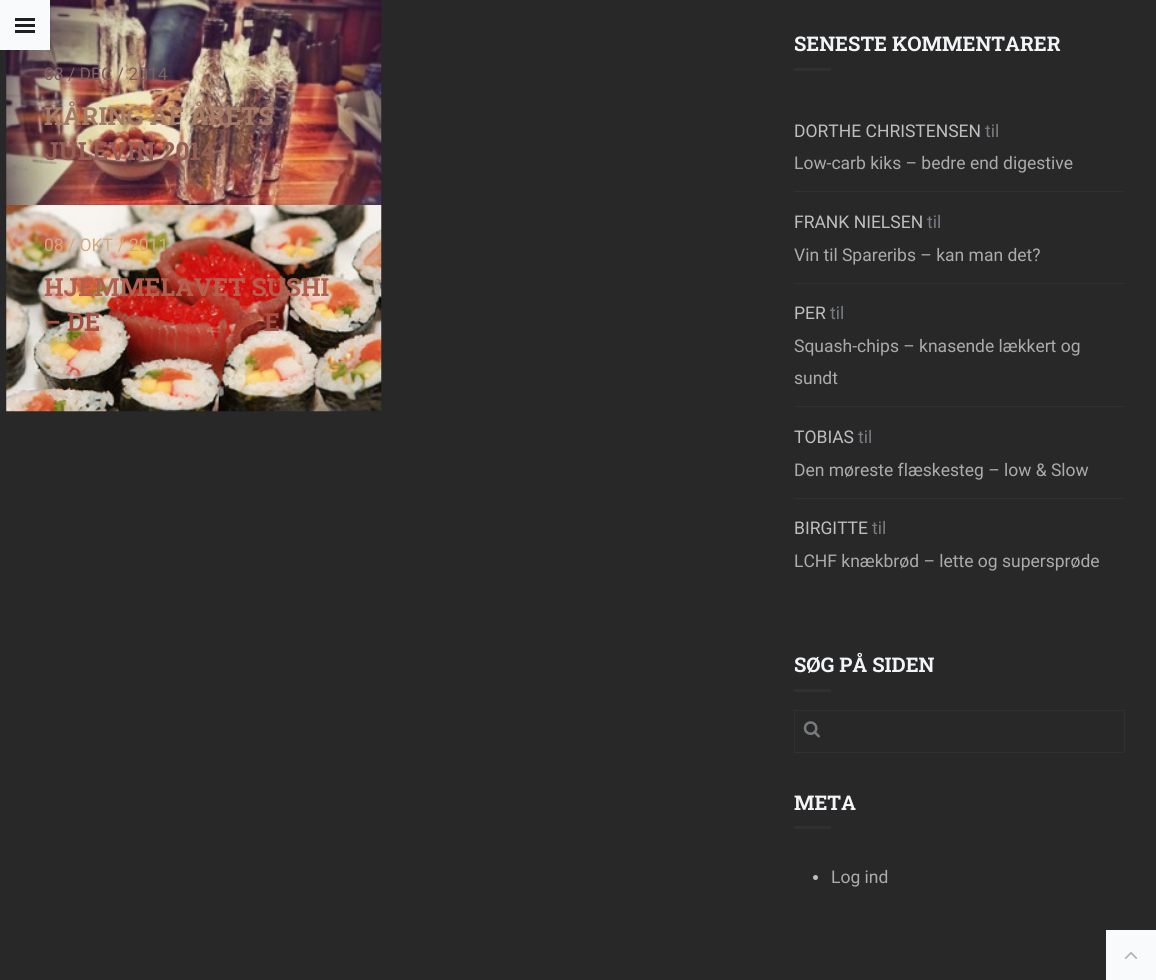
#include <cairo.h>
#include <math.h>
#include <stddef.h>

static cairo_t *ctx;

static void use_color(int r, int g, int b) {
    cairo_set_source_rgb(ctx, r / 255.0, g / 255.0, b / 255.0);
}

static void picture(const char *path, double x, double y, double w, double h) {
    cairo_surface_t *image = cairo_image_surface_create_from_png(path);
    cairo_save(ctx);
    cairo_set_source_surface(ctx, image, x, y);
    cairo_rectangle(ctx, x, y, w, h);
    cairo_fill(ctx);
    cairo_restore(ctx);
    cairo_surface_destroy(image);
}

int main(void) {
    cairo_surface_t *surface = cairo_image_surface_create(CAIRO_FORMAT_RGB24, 1156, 980);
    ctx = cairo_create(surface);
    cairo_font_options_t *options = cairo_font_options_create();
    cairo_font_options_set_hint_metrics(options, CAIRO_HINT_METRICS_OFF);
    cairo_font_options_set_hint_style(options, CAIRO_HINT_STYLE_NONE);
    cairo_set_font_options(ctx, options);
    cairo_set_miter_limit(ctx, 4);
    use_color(40, 40, 41);
    cairo_paint(ctx);
    picture("img1.png", 6, 0, 376, 205);
    use_color(249, 250, 252);
    cairo_rectangle(ctx, 0, 0, 50, 50);
    cairo_fill(ctx);
    use_color(32, 32, 32);
    cairo_rectangle(ctx, 15, 18, 20, 3);
    cairo_fill(ctx);
    cairo_rectangle(ctx, 15, 24, 20, 3);
    cairo_fill(ctx);
    cairo_rectangle(ctx, 15, 30, 20, 3);
    cairo_fill(ctx);
    cairo_select_font_face(ctx, "Roboto", CAIRO_FONT_SLANT_NORMAL, CAIRO_FONT_WEIGHT_NORMAL);
    cairo_set_font_size(ctx, 17.5);
    use_color(126, 97, 94);
    cairo_move_to(ctx, 44, 80);
    cairo_show_text(ctx, "08 / DEC / 2014");
    cairo_select_font_face(ctx, "Roboto Slab", CAIRO_FONT_SLANT_NORMAL, CAIRO_FONT_WEIGHT_BOLD);
    cairo_set_font_size(ctx, 25);
    use_color(165, 125, 103);
    cairo_move_to(ctx, 44, 125);
    cairo_show_text(ctx, "KÅRING AF ÅRETS");
    use_color(150, 95, 86);
    cairo_move_to(ctx, 44, 160);
    cairo_show_text(ctx, "JULEVIN 2014");
    picture("img2.png", 6, 205, 376, 207);
    cairo_select_font_face(ctx, "Roboto", CAIRO_FONT_SLANT_NORMAL, CAIRO_FONT_WEIGHT_NORMAL);
    cairo_set_font_size(ctx, 17.5);
    use_color(210, 169, 129);
    cairo_move_to(ctx, 44, 251);
    cairo_show_text(ctx, "08 / OKT / 2011");
    cairo_select_font_face(ctx, "Roboto Slab", CAIRO_FONT_SLANT_NORMAL, CAIRO_FONT_WEIGHT_BOLD);
    cairo_set_font_size(ctx, 25);
    use_color(180, 96, 79);
    cairo_move_to(ctx, 44, 296);
    cairo_show_text(ctx, "HJEMMELAVET SUSHI");
    use_color(166, 81, 68);
    cairo_move_to(ctx, 44, 331);
    cairo_show_text(ctx, "– DE");
    cairo_move_to(ctx, 264, 331);
    cairo_show_text(ctx, "E");
    cairo_set_font_size(ctx, 20.25);
    use_color(243, 244, 247);
    cairo_move_to(ctx, 794, 51);
    cairo_show_text(ctx, "SENESTE KOMMENTARER");
    use_color(46, 48, 50);
    cairo_rectangle(ctx, 794, 68, 37, 3);
    cairo_fill(ctx);
    cairo_select_font_face(ctx, "Roboto", CAIRO_FONT_SLANT_NORMAL, CAIRO_FONT_WEIGHT_NORMAL);
    cairo_set_font_size(ctx, 17.5);
    use_color(188, 190, 192);
    cairo_move_to(ctx, 794, 137);
    cairo_show_text(ctx, "DORTHE CHRISTENSEN");
    use_color(120, 124, 129);
    cairo_move_to(ctx, 985, 137);
    cairo_show_text(ctx, "til");
    use_color(171, 171, 171);
    cairo_move_to(ctx, 794, 169);
    cairo_show_text(ctx, "Low-carb kiks – bedre end digestive");
    use_color(46, 48, 50);
    cairo_rectangle(ctx, 794, 191, 331, 1);
    cairo_fill(ctx);
    use_color(188, 190, 192);
    cairo_move_to(ctx, 794, 228);
    cairo_show_text(ctx, "FRANK NIELSEN");
    use_color(120, 124, 129);
    cairo_move_to(ctx, 927, 228);
    cairo_show_text(ctx, "til");
    use_color(171, 171, 171);
    cairo_move_to(ctx, 794, 261);
    cairo_show_text(ctx, "Vin til Spareribs – kan man det?");
    use_color(46, 48, 50);
    cairo_rectangle(ctx, 794, 283, 331, 1);
    cairo_fill(ctx);
    use_color(188, 190, 192);
    cairo_move_to(ctx, 794, 319);
    cairo_show_text(ctx, "PER");
    use_color(120, 124, 129);
    cairo_move_to(ctx, 830, 319);
    cairo_show_text(ctx, "til");
    use_color(171, 171, 171);
    cairo_move_to(ctx, 794, 352);
    cairo_show_text(ctx, "Squash-chips – knasende lækkert og");
    cairo_move_to(ctx, 794, 384);
    cairo_show_text(ctx, "sundt");
    use_color(46, 48, 50);
    cairo_rectangle(ctx, 794, 406, 331, 1);
    cairo_fill(ctx);
    use_color(188, 190, 192);
    cairo_move_to(ctx, 794, 443);
    cairo_show_text(ctx, "TOBIAS");
    use_color(120, 124, 129);
    cairo_move_to(ctx, 858, 443);
    cairo_show_text(ctx, "til");
    use_color(171, 171, 171);
    cairo_move_to(ctx, 794, 476);
    cairo_show_text(ctx, "Den møreste flæskesteg – low & Slow");
    use_color(46, 48, 50);
    cairo_rectangle(ctx, 794, 498, 331, 1);
    cairo_fill(ctx);
    use_color(188, 190, 192);
    cairo_move_to(ctx, 794, 534);
    cairo_show_text(ctx, "BIRGITTE");
    use_color(120, 124, 129);
    cairo_move_to(ctx, 872, 534);
    cairo_show_text(ctx, "til");
    use_color(171, 171, 171);
    cairo_move_to(ctx, 794, 567);
    cairo_show_text(ctx, "LCHF knækbrød – lette og supersprøde");
    cairo_select_font_face(ctx, "Roboto Slab", CAIRO_FONT_SLANT_NORMAL, CAIRO_FONT_WEIGHT_BOLD);
    cairo_set_font_size(ctx, 20.25);
    use_color(243, 244, 247);
    cairo_move_to(ctx, 794, 672);
    cairo_show_text(ctx, "SØG PÅ SIDEN");
    use_color(46, 48, 50);
    cairo_rectangle(ctx, 794, 689, 37, 3);
    cairo_fill(ctx);
    cairo_rectangle(ctx, 794.5, 710.5, 330, 42);
    cairo_set_line_width(ctx, 1);
    cairo_stroke(ctx);
    picture("img3.png", 803, 721, 17, 17);
    use_color(243, 244, 247);
    cairo_move_to(ctx, 794, 810);
    cairo_show_text(ctx, "META");
    use_color(46, 48, 50);
    cairo_rectangle(ctx, 794, 826, 37, 3);
    cairo_fill(ctx);
    use_color(188, 190, 192);
    cairo_arc(ctx, 815.5, 877.5, 2.5, 0, 2 * M_PI);
    cairo_fill(ctx);
    cairo_select_font_face(ctx, "Roboto", CAIRO_FONT_SLANT_NORMAL, CAIRO_FONT_WEIGHT_NORMAL);
    cairo_set_font_size(ctx, 17.5);
    use_color(171, 171, 171);
    cairo_move_to(ctx, 831, 883);
    cairo_show_text(ctx, "Log ind");
    use_color(249, 250, 252);
    cairo_rectangle(ctx, 1106, 930, 50, 50);
    cairo_fill(ctx);
    picture("img4.png", 1124, 952, 14, 7);
    cairo_surface_write_to_png(surface, "result.png");
    cairo_font_options_destroy(options);
    cairo_destroy(ctx);
    cairo_surface_destroy(surface);
    return 0;
}
